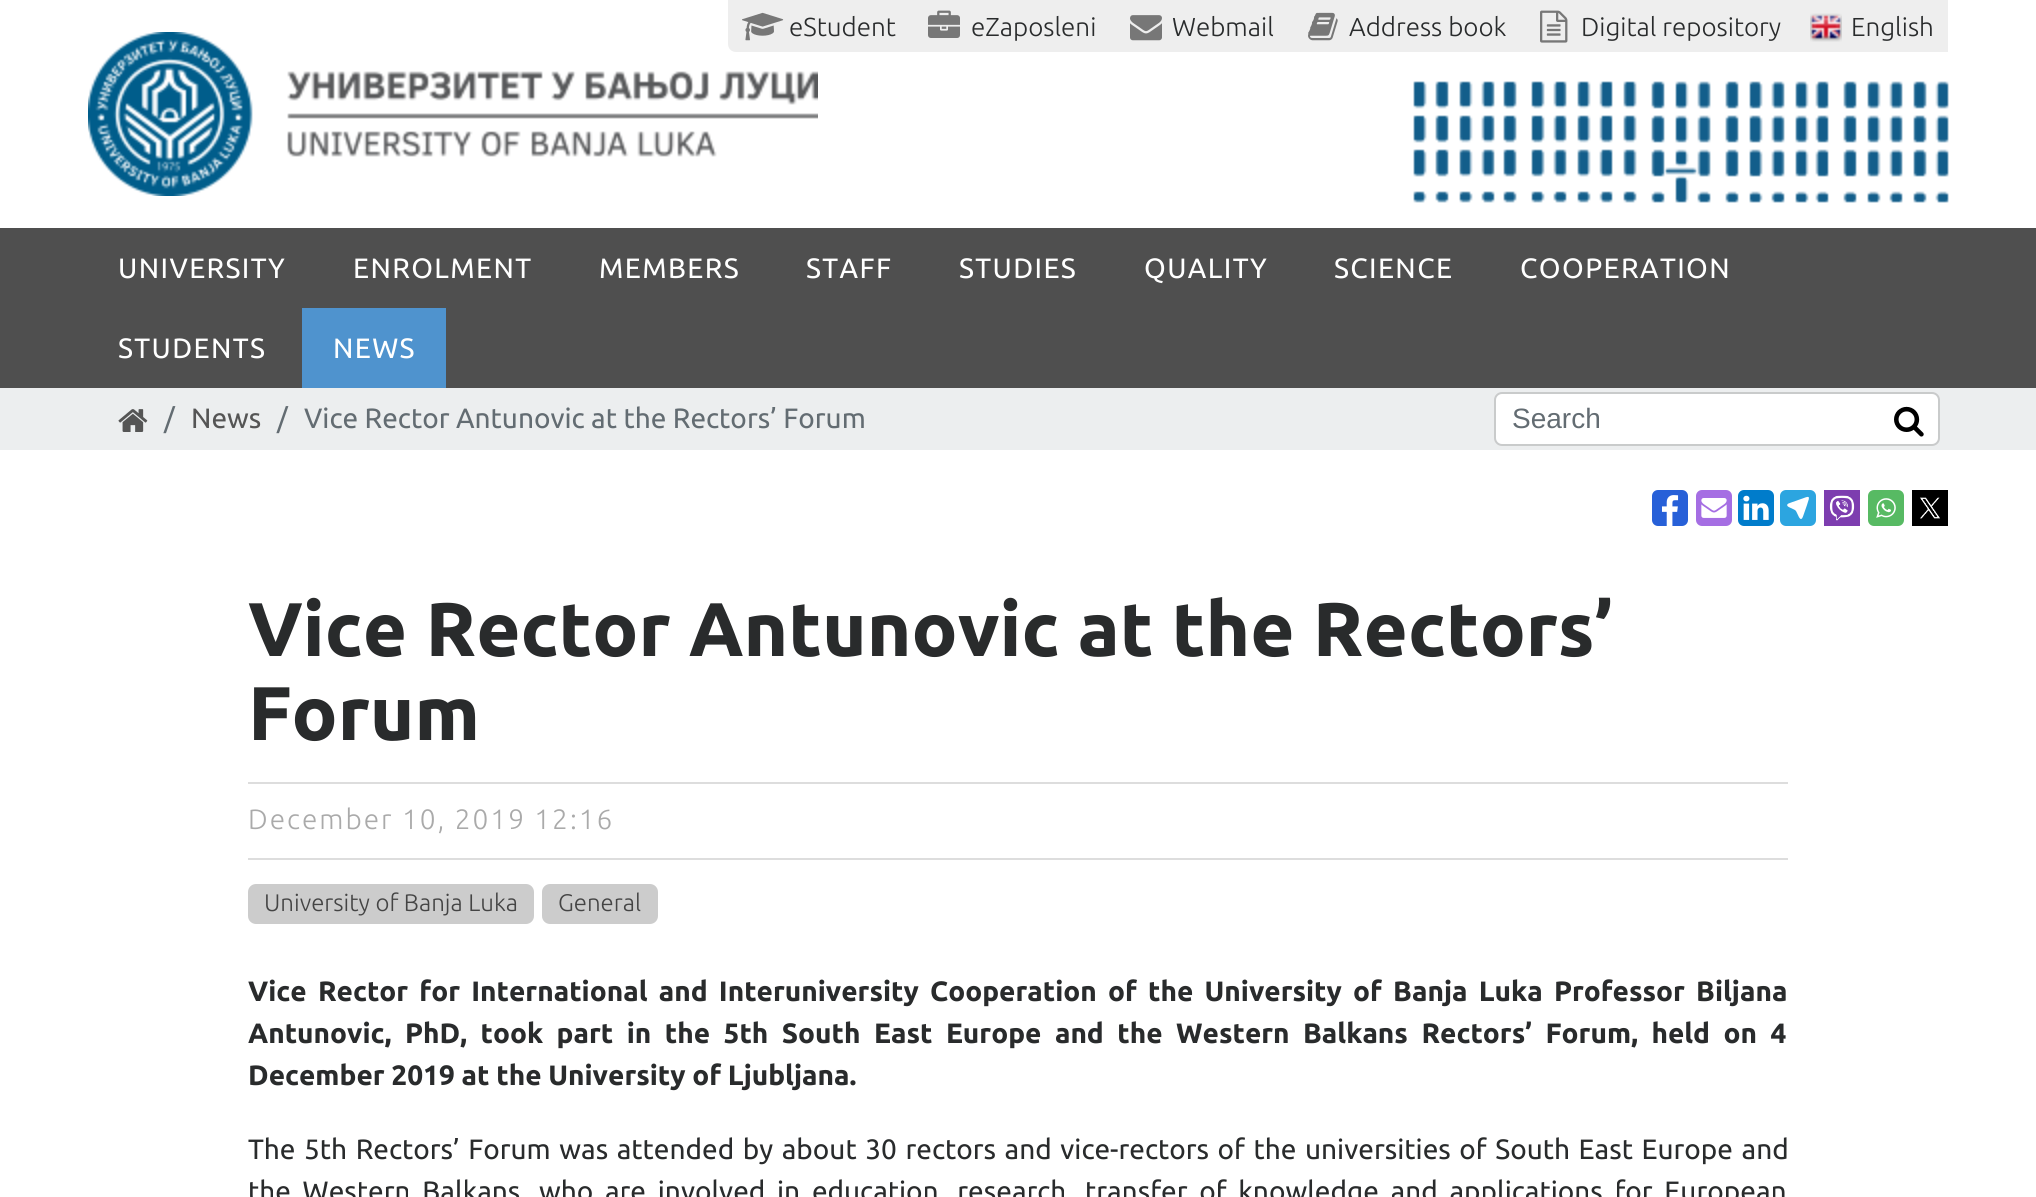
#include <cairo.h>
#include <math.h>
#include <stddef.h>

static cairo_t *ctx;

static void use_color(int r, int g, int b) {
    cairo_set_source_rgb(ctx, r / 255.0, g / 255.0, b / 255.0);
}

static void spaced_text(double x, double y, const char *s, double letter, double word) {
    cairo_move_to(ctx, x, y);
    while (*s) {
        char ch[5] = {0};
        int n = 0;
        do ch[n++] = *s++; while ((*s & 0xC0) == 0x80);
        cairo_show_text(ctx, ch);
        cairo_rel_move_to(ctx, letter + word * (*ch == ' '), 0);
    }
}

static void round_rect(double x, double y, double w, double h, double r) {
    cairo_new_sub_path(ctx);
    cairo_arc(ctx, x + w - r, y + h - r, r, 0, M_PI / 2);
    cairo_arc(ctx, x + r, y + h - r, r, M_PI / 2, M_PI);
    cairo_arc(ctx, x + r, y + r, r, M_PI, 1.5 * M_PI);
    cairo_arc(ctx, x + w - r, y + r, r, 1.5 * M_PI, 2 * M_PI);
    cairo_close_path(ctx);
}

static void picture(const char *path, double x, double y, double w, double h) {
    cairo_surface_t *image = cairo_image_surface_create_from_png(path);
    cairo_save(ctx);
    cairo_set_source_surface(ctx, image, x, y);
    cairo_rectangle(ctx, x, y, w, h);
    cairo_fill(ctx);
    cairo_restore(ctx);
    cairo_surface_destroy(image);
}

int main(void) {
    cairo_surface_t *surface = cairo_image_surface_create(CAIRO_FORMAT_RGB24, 2036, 1197);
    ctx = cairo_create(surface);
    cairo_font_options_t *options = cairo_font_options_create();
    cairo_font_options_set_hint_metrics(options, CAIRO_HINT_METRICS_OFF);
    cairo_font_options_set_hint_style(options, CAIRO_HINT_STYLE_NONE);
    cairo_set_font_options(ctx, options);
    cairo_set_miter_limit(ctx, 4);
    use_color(255, 255, 255);
    cairo_paint(ctx);
    picture("img1.png", 1413, 81, 536, 122);
    picture("img8.png", 88, 32, 730, 164);
    use_color(238, 238, 238);
    cairo_new_path(ctx);
    cairo_move_to(ctx, 728, -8);
    cairo_line_to(ctx, 910, -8);
    cairo_line_to(ctx, 910, 52);
    cairo_line_to(ctx, 736, 52);
    cairo_curve_to(ctx, 731.5, 52, 728, 48.5, 728, 44);
    cairo_close_path(ctx);
    cairo_fill(ctx);
    picture("img2.png", 742, 12, 42, 29);
    cairo_select_font_face(ctx, "Ubuntu Light", CAIRO_FONT_SLANT_NORMAL, CAIRO_FONT_WEIGHT_NORMAL);
    cairo_set_font_size(ctx, 26);
    use_color(41, 43, 44);
    cairo_move_to(ctx, 789, 36);
    cairo_show_text(ctx, "eStudent");
    use_color(238, 238, 238);
    cairo_rectangle(ctx, 910, 0, 1038, 52);
    cairo_fill(ctx);
    picture("img3.png", 928, 10, 32, 28);
    use_color(41, 43, 44);
    cairo_move_to(ctx, 971, 36);
    cairo_show_text(ctx, "eZaposleni");
    picture("img4.png", 1130, 15, 32, 26);
    cairo_move_to(ctx, 1172, 36);
    cairo_show_text(ctx, "Webmail");
    picture("img5.png", 1308, 12, 30, 29);
    cairo_move_to(ctx, 1349, 36);
    cairo_show_text(ctx, "Address book");
    picture("img6.png", 1540, 10, 28, 33);
    cairo_move_to(ctx, 1581, 36);
    cairo_show_text(ctx, "Digital repository");
    picture("img7.png", 1810, 13, 32, 29);
    cairo_move_to(ctx, 1851, 36);
    cairo_show_text(ctx, "English");
    use_color(79, 79, 79);
    cairo_rectangle(ctx, 0, 228, 2036, 160);
    cairo_fill(ctx);
    cairo_select_font_face(ctx, "Ubuntu", CAIRO_FONT_SLANT_NORMAL, CAIRO_FONT_WEIGHT_NORMAL);
    cairo_set_font_size(ctx, 28);
    use_color(255, 255, 255);
    spaced_text(118, 278, "UNIVERSITY", 1.4, 0);
    spaced_text(353, 278, "ENROLMENT", 1.4, 0);
    spaced_text(599, 278, "MEMBERS", 1.4, 0);
    spaced_text(806, 278, "STAFF", 1.4, 0);
    spaced_text(959, 278, "STUDIES", 1.4, 0);
    spaced_text(1144, 278, "QUALITY", 1.4, 0);
    spaced_text(1334, 278, "SCIENCE", 1.4, 0);
    spaced_text(1520, 278, "COOPERATION", 1.4, 0);
    spaced_text(118, 358, "STUDENTS", 1.4, 0);
    use_color(79, 147, 206);
    cairo_rectangle(ctx, 302, 308, 144, 80);
    cairo_fill(ctx);
    use_color(255, 255, 255);
    spaced_text(333, 358, "NEWS", 1.4, 0);
    use_color(236, 238, 239);
    cairo_rectangle(ctx, 0, 388, 2036, 62);
    cairo_fill(ctx);
    picture("img9.png", 118, 409, 30, 23);
    use_color(99, 108, 114);
    cairo_move_to(ctx, 164, 428);
    cairo_show_text(ctx, "/");
    use_color(85, 85, 85);
    cairo_move_to(ctx, 191, 428);
    cairo_show_text(ctx, "News");
    use_color(99, 108, 114);
    cairo_move_to(ctx, 277, 428);
    cairo_show_text(ctx, "/");
    cairo_move_to(ctx, 304, 428);
    cairo_show_text(ctx, "Vice Rector Antunovic at the Rectors’ Forum");
    use_color(255, 255, 255);
    round_rect(1496, 394, 442, 50, 6);
    cairo_fill(ctx);
    round_rect(1495, 393, 444, 52, 7);
    cairo_set_source_rgba(ctx, 0, 0, 0, 0.15);
    cairo_stroke(ctx);
    cairo_select_font_face(ctx, "Liberation Sans", CAIRO_FONT_SLANT_NORMAL, CAIRO_FONT_WEIGHT_NORMAL);
    use_color(99, 108, 114);
    cairo_move_to(ctx, 1512, 428);
    cairo_show_text(ctx, "Search");
    picture("img10.png", 1894, 406, 30, 31);
    picture("img11.png", 1652, 490, 36, 36);
    picture("img12.png", 1696, 490, 36, 36);
    picture("img13.png", 1738, 490, 36, 36);
    picture("img14.png", 1780, 490, 36, 36);
    picture("img15.png", 1824, 490, 36, 36);
    picture("img16.png", 1868, 490, 36, 36);
    picture("img17.png", 1912, 490, 36, 36);
    use_color(221, 221, 221);
    cairo_rectangle(ctx, 248, 782, 1540, 2);
    cairo_fill(ctx);
    cairo_select_font_face(ctx, "Ubuntu", CAIRO_FONT_SLANT_NORMAL, CAIRO_FONT_WEIGHT_BOLD);
    cairo_set_font_size(ctx, 76);
    use_color(41, 43, 44);
    cairo_move_to(ctx, 248, 656);
    cairo_show_text(ctx, "Vice Rector Antunovic at the Rectors’");
    cairo_move_to(ctx, 248, 740);
    cairo_show_text(ctx, "Forum");
    use_color(221, 221, 221);
    cairo_rectangle(ctx, 248, 858, 1540, 2);
    cairo_fill(ctx);
    cairo_select_font_face(ctx, "Ubuntu Light", CAIRO_FONT_SLANT_NORMAL, CAIRO_FONT_WEIGHT_NORMAL);
    cairo_set_font_size(ctx, 28);
    use_color(170, 170, 170);
    spaced_text(248, 829, "December 10, 2019 12:16", 2, 0);
    use_color(204, 204, 204);
    round_rect(248, 884, 286, 40, 8);
    cairo_fill(ctx);
    cairo_set_font_size(ctx, 24);
    use_color(68, 68, 68);
    cairo_move_to(ctx, 264, 911);
    cairo_show_text(ctx, "University of Banja Luka");
    use_color(204, 204, 204);
    round_rect(542, 884, 116, 40, 8);
    cairo_fill(ctx);
    use_color(68, 68, 68);
    cairo_move_to(ctx, 558, 911);
    cairo_show_text(ctx, "General");
    cairo_select_font_face(ctx, "Ubuntu", CAIRO_FONT_SLANT_NORMAL, CAIRO_FONT_WEIGHT_BOLD);
    cairo_set_font_size(ctx, 28);
    use_color(41, 43, 44);
    spaced_text(248, 1001, "Vice Rector for International and Interuniversity Cooperation of the University of Banja Luka Professor Biljana", 0, 4.5);
    spaced_text(248, 1043, "Antunovic, PhD, took part in the 5th South East Europe and the Western Balkans Rectors’ Forum, held on 4", 0, 6.75);
    cairo_move_to(ctx, 248, 1085);
    cairo_show_text(ctx, "December 2019 at the University of Ljubljana.");
    cairo_select_font_face(ctx, "Ubuntu", CAIRO_FONT_SLANT_NORMAL, CAIRO_FONT_WEIGHT_NORMAL);
    spaced_text(248, 1159, "The 5th Rectors’ Forum was attended by about 30 rectors and vice-rectors of the universities of South East Europe and", 0, 2.1);
    spaced_text(248, 1201, "the Western Balkans, who are involved in education, research, transfer of knowledge and applications for European", 0, 5.25);
    cairo_surface_write_to_png(surface, "result.png");
    cairo_font_options_destroy(options);
    cairo_destroy(ctx);
    cairo_surface_destroy(surface);
    return 0;
}
